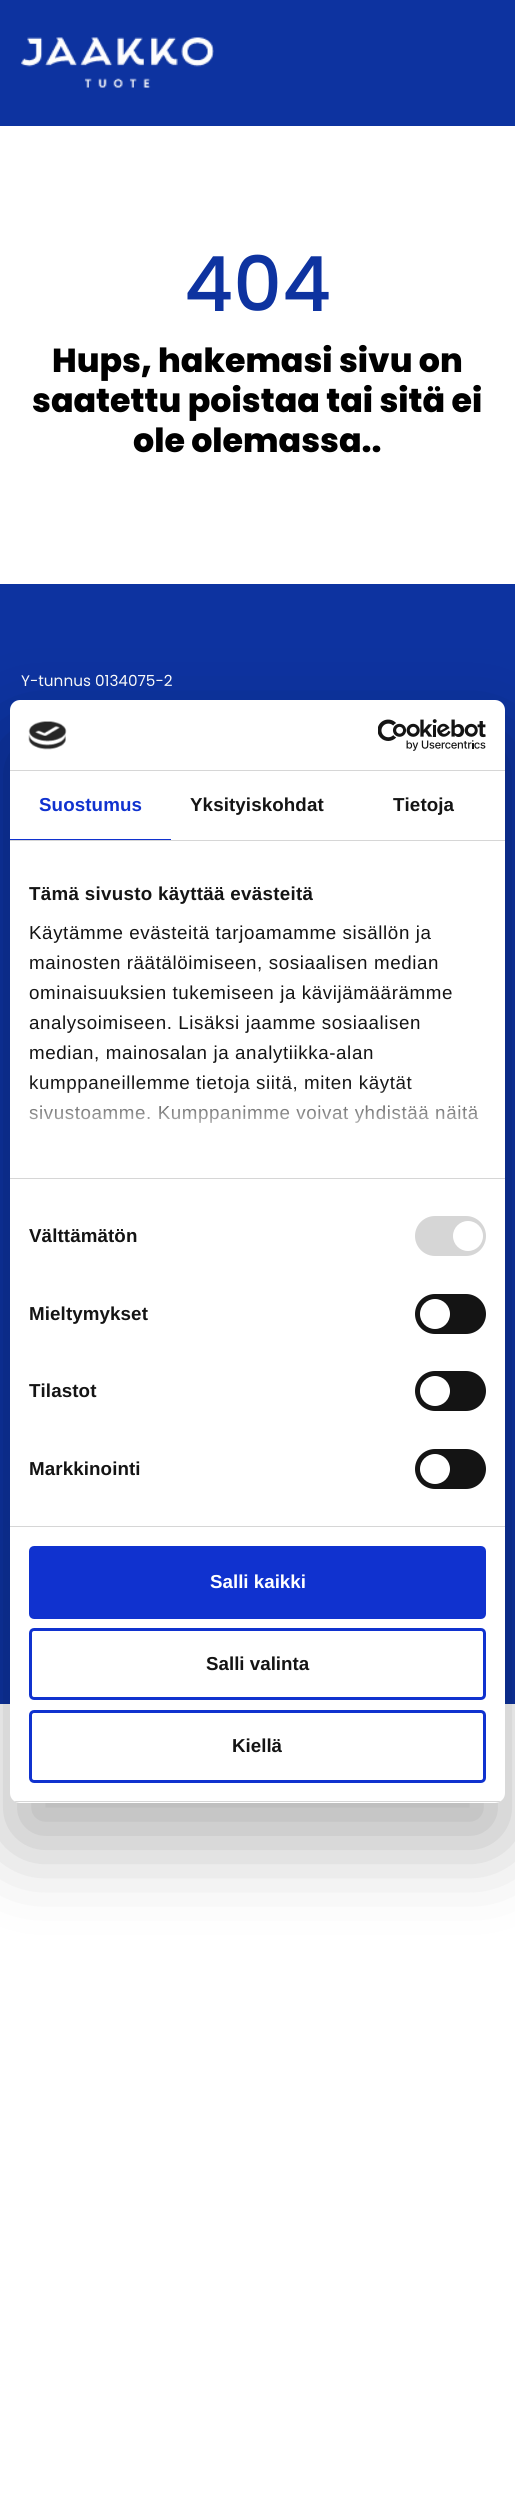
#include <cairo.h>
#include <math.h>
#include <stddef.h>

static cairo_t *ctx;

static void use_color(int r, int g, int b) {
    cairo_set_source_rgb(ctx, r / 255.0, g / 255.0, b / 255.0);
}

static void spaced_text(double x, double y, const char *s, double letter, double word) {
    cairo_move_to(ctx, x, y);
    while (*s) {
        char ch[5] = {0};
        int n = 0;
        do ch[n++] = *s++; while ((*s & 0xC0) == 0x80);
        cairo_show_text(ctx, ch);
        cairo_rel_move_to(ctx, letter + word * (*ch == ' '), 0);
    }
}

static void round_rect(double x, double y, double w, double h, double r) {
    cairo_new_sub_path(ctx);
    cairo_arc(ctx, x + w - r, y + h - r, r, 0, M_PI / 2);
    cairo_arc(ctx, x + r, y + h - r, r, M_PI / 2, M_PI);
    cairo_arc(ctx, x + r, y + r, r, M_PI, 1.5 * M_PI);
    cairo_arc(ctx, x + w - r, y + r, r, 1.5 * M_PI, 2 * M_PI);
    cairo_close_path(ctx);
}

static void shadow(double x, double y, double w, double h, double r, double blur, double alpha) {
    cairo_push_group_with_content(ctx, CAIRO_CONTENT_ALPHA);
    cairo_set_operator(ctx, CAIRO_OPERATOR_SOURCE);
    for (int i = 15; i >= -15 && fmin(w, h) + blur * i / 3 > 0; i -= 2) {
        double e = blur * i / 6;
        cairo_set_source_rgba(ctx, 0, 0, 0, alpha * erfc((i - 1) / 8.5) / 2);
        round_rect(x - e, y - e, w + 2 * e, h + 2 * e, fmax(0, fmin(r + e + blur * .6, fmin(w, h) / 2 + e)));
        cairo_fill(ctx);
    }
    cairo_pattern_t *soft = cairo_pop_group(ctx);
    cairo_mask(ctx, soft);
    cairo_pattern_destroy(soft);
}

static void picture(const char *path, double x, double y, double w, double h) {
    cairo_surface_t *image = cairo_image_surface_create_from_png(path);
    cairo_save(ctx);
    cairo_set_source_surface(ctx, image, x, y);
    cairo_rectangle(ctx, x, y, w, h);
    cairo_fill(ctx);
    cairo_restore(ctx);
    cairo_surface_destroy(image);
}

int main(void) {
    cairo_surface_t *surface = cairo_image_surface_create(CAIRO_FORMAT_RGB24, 515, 2502);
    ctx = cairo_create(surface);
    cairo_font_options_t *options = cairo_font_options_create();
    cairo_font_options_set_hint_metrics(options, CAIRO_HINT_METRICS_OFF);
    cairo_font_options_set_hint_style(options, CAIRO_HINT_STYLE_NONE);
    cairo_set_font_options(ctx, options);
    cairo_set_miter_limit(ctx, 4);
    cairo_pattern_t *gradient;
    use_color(255, 255, 255);
    cairo_paint(ctx);
    use_color(13, 51, 160);
    cairo_rectangle(ctx, 0, 0, 515, 126);
    cairo_fill(ctx);
    picture("img1.png", 21, 37, 193, 51);
    cairo_select_font_face(ctx, "Poppins Medium", CAIRO_FONT_SLANT_NORMAL, CAIRO_FONT_WEIGHT_NORMAL);
    cairo_set_font_size(ctx, 76);
    use_color(14, 51, 160);
    cairo_move_to(ctx, 184, 311);
    cairo_show_text(ctx, "404");
    cairo_select_font_face(ctx, "Poppins ExtraBold", CAIRO_FONT_SLANT_NORMAL, CAIRO_FONT_WEIGHT_NORMAL);
    cairo_set_font_size(ctx, 33.25);
    use_color(0, 0, 0);
    cairo_move_to(ctx, 52, 372);
    cairo_show_text(ctx, "Hups, hakemasi sivu on");
    cairo_move_to(ctx, 32, 412);
    cairo_show_text(ctx, "saatettu poistaa tai sitä ei");
    cairo_move_to(ctx, 133, 452);
    cairo_show_text(ctx, "ole olemassa..");
    use_color(13, 51, 160);
    cairo_rectangle(ctx, 0, 584, 515, 1120);
    cairo_fill(ctx);
    cairo_select_font_face(ctx, "Poppins", CAIRO_FONT_SLANT_NORMAL, CAIRO_FONT_WEIGHT_NORMAL);
    cairo_set_font_size(ctx, 15.25);
    use_color(255, 255, 255);
    cairo_move_to(ctx, 21, 686);
    cairo_show_text(ctx, "Y-tunnus 0134075-2");
    use_color(0, 0, 0);
    shadow(10, 740, 495, 1103, 10, 42.5, 0.3);
    use_color(255, 255, 255);
    round_rect(10, 700, 495, 1103, 10);
    cairo_fill(ctx);
    use_color(214, 214, 214);
    cairo_rectangle(ctx, 10, 770, 495, 1);
    cairo_fill(ctx);
    picture("img2.png", 28, 721, 39, 29);
    picture("img3.png", 378, 719, 108, 32);
    cairo_rectangle(ctx, 10, 840, 495, 1);
    cairo_fill(ctx);
    use_color(16, 50, 207);
    cairo_rectangle(ctx, 10, 839, 161, 1);
    cairo_fill(ctx);
    cairo_select_font_face(ctx, "Liberation Sans", CAIRO_FONT_SLANT_NORMAL, CAIRO_FONT_WEIGHT_BOLD);
    cairo_set_font_size(ctx, 18.75);
    spaced_text(39, 811, "Suostumus", 0.1, 0);
    use_color(20, 20, 20);
    spaced_text(190, 811, "Yksityiskohdat", 0.1, 0);
    spaced_text(393, 811, "Tietoja", 0.1, 0);
    use_color(214, 214, 214);
    cairo_rectangle(ctx, 10, 1178, 495, 1);
    cairo_fill(ctx);
    use_color(20, 20, 20);
    spaced_text(29, 900, "Tämä sivusto käyttää evästeitä", 0.3, 0);
    cairo_select_font_face(ctx, "Liberation Sans", CAIRO_FONT_SLANT_NORMAL, CAIRO_FONT_WEIGHT_NORMAL);
    spaced_text(29, 939, "Käytämme evästeitä tarjoamamme sisällön ja", 0.6, 0);
    spaced_text(29, 969, "mainosten räätälöimiseen, sosiaalisen median", 0.6, 0);
    spaced_text(29, 999, "ominaisuuksien tukemiseen ja kävijämäärämme", 0.6, 0);
    spaced_text(29, 1029, "analysoimiseen. Lisäksi jaamme sosiaalisen", 0.6, 0);
    spaced_text(29, 1059, "median, mainosalan ja analytiikka-alan", 0.6, 0);
    spaced_text(29, 1089, "kumppaneillemme tietoja siitä, miten käytät", 0.6, 0);
    spaced_text(29, 1119, "sivustoamme. Kumppanimme voivat yhdistää näitä", 0.6, 0);
    gradient = cairo_pattern_create_linear(249, 1178, 249, 1084);
    cairo_pattern_add_color_stop_rgba(gradient, 0, 1, 1, 1, 1);
    cairo_pattern_add_color_stop_rgba(gradient, 0.5, 1, 1, 1, 0.8);
    cairo_pattern_add_color_stop_rgba(gradient, 1, 1, 1, 1, 0);
    cairo_set_source(ctx, gradient);
    cairo_pattern_destroy(gradient);
    cairo_rectangle(ctx, 29, 1085, 450, 38);
    cairo_fill(ctx);
    use_color(214, 214, 214);
    cairo_rectangle(ctx, 10, 1526, 495, 1);
    cairo_fill(ctx);
    cairo_select_font_face(ctx, "Liberation Sans", CAIRO_FONT_SLANT_NORMAL, CAIRO_FONT_WEIGHT_BOLD);
    use_color(20, 20, 20);
    spaced_text(29, 1242, "Välttämätön", 0.1, 0);
    use_color(214, 214, 214);
    round_rect(415, 1216, 71, 40, 20);
    cairo_fill(ctx);
    use_color(255, 255, 255);
    cairo_arc(ctx, 468, 1236, 15, 0, 2 * M_PI);
    cairo_fill(ctx);
    use_color(20, 20, 20);
    spaced_text(29, 1320, "Mieltymykset", 0.1, 0);
    round_rect(415, 1294, 71, 40, 20);
    cairo_fill(ctx);
    use_color(255, 255, 255);
    cairo_arc(ctx, 435, 1314, 15, 0, 2 * M_PI);
    cairo_fill(ctx);
    use_color(20, 20, 20);
    spaced_text(29, 1397, "Tilastot", 0.1, 0);
    round_rect(415, 1371, 71, 40, 20);
    cairo_fill(ctx);
    use_color(255, 255, 255);
    cairo_arc(ctx, 435, 1391, 15, 0, 2 * M_PI);
    cairo_fill(ctx);
    use_color(20, 20, 20);
    spaced_text(29, 1475, "Markkinointi", 0.1, 0);
    round_rect(415, 1449, 71, 40, 20);
    cairo_fill(ctx);
    use_color(255, 255, 255);
    cairo_arc(ctx, 435, 1469, 15, 0, 2 * M_PI);
    cairo_fill(ctx);
    cairo_save(ctx);
    round_rect(10, 700, 495, 1103, 10);
    cairo_clip(ctx);
    use_color(214, 214, 214);
    cairo_rectangle(ctx, 10, 1801, 495, 1);
    cairo_fill(ctx);
    cairo_restore(ctx);
    use_color(16, 50, 207);
    round_rect(30.5, 1547.5, 454, 70, 3.5);
    cairo_fill_preserve(ctx);
    cairo_set_line_width(ctx, 3);
    cairo_stroke(ctx);
    use_color(255, 255, 255);
    cairo_move_to(ctx, 210, 1588);
    cairo_show_text(ctx, "Salli kaikki");
    round_rect(30.5, 1629.5, 454, 69, 3.5);
    use_color(16, 50, 207);
    cairo_stroke(ctx);
    use_color(20, 20, 20);
    cairo_move_to(ctx, 206, 1670);
    cairo_show_text(ctx, "Salli valinta");
    round_rect(30.5, 1711.5, 454, 70, 3.5);
    use_color(16, 50, 207);
    cairo_stroke(ctx);
    use_color(20, 20, 20);
    cairo_move_to(ctx, 232, 1752);
    cairo_show_text(ctx, "Kiellä");
    cairo_surface_write_to_png(surface, "result.png");
    cairo_font_options_destroy(options);
    cairo_destroy(ctx);
    cairo_surface_destroy(surface);
    return 0;
}
